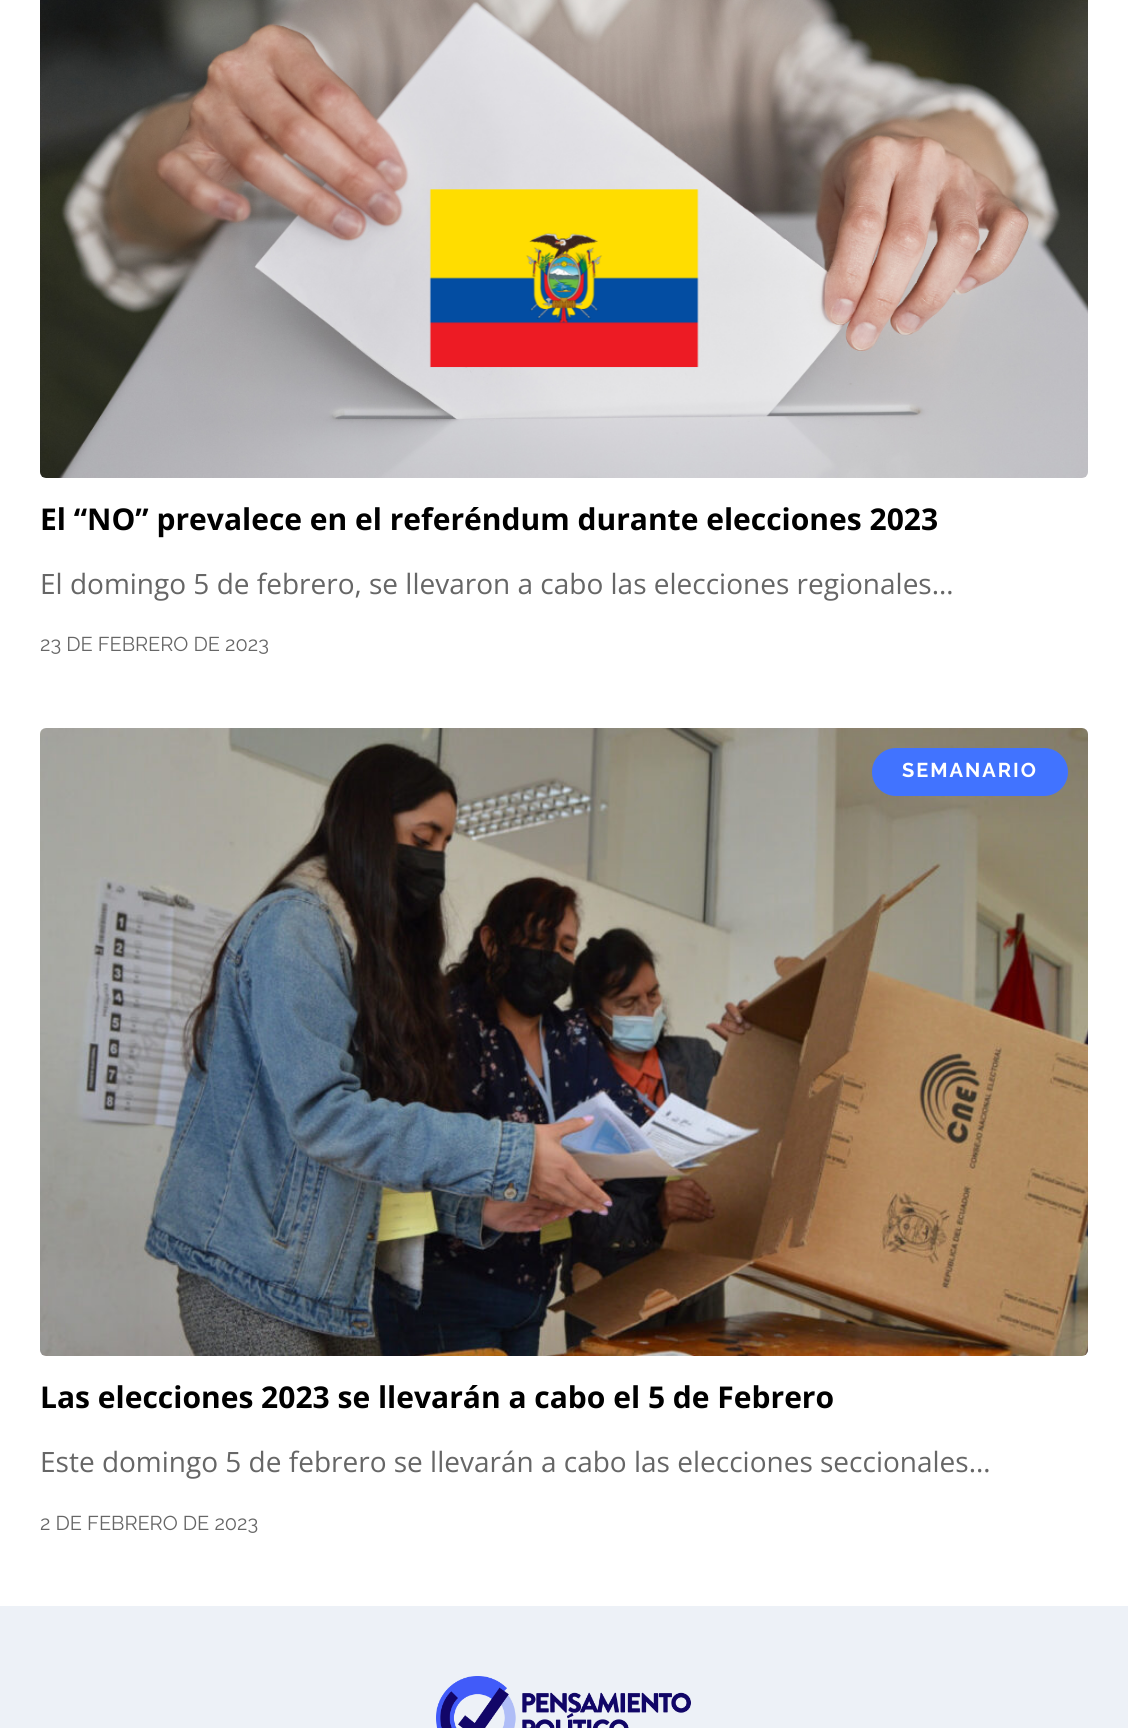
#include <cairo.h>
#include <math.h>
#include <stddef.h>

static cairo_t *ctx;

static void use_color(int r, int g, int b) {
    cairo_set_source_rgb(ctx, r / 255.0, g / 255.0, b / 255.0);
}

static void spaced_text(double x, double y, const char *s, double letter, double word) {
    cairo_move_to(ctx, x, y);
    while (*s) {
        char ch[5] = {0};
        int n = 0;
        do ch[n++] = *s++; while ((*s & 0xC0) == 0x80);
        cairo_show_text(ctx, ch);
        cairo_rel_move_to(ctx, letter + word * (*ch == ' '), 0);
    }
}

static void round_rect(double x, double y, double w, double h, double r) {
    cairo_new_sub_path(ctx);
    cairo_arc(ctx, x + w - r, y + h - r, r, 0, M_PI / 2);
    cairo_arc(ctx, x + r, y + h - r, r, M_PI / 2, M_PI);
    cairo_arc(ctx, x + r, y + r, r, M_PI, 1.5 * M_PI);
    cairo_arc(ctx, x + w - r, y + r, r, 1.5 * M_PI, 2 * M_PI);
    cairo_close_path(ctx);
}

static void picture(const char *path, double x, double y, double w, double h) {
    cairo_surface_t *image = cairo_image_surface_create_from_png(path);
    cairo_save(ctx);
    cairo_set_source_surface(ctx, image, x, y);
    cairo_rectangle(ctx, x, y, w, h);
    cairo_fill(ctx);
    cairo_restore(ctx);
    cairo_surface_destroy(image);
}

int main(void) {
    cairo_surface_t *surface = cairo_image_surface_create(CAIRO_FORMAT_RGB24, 1128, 1728);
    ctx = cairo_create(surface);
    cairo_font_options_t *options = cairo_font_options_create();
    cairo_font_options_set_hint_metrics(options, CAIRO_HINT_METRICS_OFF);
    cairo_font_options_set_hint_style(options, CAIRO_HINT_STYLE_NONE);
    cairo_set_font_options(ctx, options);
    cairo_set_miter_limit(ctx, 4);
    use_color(255, 255, 255);
    cairo_paint(ctx);
    picture("img1.png", 40, 0, 1048, 478);
    cairo_select_font_face(ctx, "Open Sans", CAIRO_FONT_SLANT_NORMAL, CAIRO_FONT_WEIGHT_BOLD);
    cairo_set_font_size(ctx, 30);
    use_color(0, 0, 0);
    cairo_move_to(ctx, 40, 530);
    cairo_show_text(ctx, "El “NO” prevalece en el referéndum durante elecciones 2023");
    cairo_select_font_face(ctx, "Open Sans", CAIRO_FONT_SLANT_NORMAL, CAIRO_FONT_WEIGHT_NORMAL);
    cairo_set_font_size(ctx, 28);
    use_color(102, 102, 102);
    cairo_move_to(ctx, 40, 594);
    cairo_show_text(ctx, "El domingo 5 de febrero, se llevaron a cabo las elecciones regionales…");
    cairo_select_font_face(ctx, "Raleway", CAIRO_FONT_SLANT_NORMAL, CAIRO_FONT_WEIGHT_NORMAL);
    cairo_set_font_size(ctx, 20);
    cairo_move_to(ctx, 40, 651);
    cairo_show_text(ctx, "23 DE FEBRERO DE 2023");
    picture("img2.png", 40, 728, 1048, 628);
    use_color(65, 115, 255);
    round_rect(872, 748, 196, 48, 24);
    cairo_fill(ctx);
    cairo_select_font_face(ctx, "Raleway", CAIRO_FONT_SLANT_NORMAL, CAIRO_FONT_WEIGHT_BOLD);
    use_color(255, 255, 255);
    spaced_text(902, 777, "SEMANARIO", 2, 0);
    cairo_select_font_face(ctx, "Open Sans", CAIRO_FONT_SLANT_NORMAL, CAIRO_FONT_WEIGHT_BOLD);
    cairo_set_font_size(ctx, 30);
    use_color(0, 0, 0);
    cairo_move_to(ctx, 40, 1408);
    cairo_show_text(ctx, "Las elecciones 2023 se llevarán a cabo el 5 de Febrero");
    cairo_select_font_face(ctx, "Open Sans", CAIRO_FONT_SLANT_NORMAL, CAIRO_FONT_WEIGHT_NORMAL);
    cairo_set_font_size(ctx, 28);
    use_color(102, 102, 102);
    cairo_move_to(ctx, 40, 1472);
    cairo_show_text(ctx, "Este domingo 5 de febrero se llevarán a cabo las elecciones seccionales…");
    cairo_select_font_face(ctx, "Raleway", CAIRO_FONT_SLANT_NORMAL, CAIRO_FONT_WEIGHT_NORMAL);
    cairo_set_font_size(ctx, 20);
    cairo_move_to(ctx, 40, 1530);
    cairo_show_text(ctx, "2 DE FEBRERO DE 2023");
    use_color(237, 241, 247);
    cairo_rectangle(ctx, 0, 1606, 1128, 122);
    cairo_fill(ctx);
    picture("img3.png", 436, 1676, 255, 52);
    cairo_surface_write_to_png(surface, "result.png");
    cairo_font_options_destroy(options);
    cairo_destroy(ctx);
    cairo_surface_destroy(surface);
    return 0;
}
